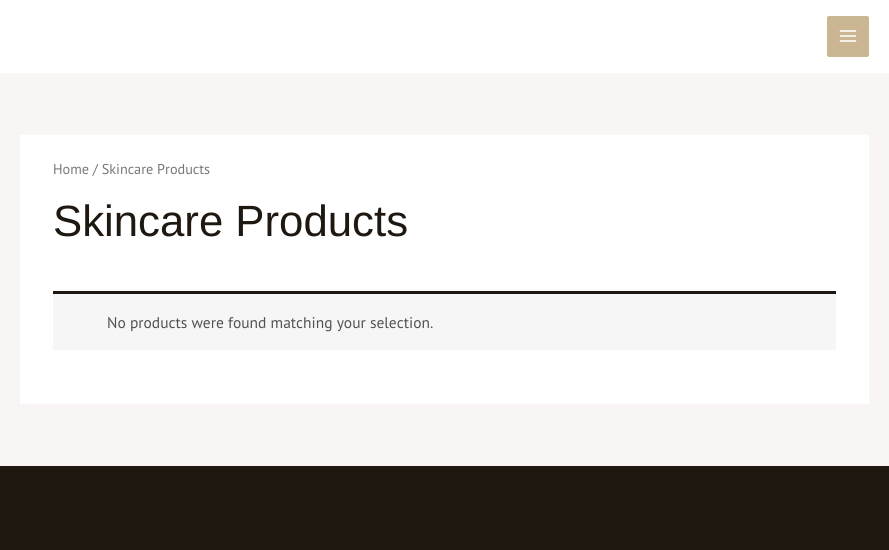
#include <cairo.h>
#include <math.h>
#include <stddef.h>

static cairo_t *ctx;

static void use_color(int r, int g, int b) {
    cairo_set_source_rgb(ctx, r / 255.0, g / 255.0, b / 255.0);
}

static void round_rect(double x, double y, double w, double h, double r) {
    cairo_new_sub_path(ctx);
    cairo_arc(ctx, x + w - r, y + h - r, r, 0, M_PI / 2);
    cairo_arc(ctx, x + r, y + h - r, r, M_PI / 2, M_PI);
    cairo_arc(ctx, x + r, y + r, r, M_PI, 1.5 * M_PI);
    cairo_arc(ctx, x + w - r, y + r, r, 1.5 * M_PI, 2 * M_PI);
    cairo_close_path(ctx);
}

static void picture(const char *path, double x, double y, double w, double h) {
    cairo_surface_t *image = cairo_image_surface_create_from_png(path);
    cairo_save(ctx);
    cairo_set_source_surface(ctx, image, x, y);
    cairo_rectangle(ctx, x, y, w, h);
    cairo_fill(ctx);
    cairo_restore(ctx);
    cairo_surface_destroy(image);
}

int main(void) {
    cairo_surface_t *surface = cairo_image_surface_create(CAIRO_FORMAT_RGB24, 889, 550);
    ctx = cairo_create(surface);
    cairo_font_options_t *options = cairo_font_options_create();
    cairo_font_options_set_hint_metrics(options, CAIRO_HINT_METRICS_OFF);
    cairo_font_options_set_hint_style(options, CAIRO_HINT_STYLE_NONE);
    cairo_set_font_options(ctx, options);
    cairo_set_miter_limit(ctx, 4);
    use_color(248, 245, 244);
    cairo_paint(ctx);
    use_color(255, 255, 255);
    cairo_rectangle(ctx, 0, 0, 889, 73);
    cairo_fill(ctx);
    use_color(202, 182, 147);
    round_rect(827, 16, 42, 41, 2);
    cairo_fill(ctx);
    picture("img1.png", 839, 30, 18, 12);
    use_color(255, 255, 255);
    cairo_rectangle(ctx, 20, 135, 849, 269);
    cairo_fill(ctx);
    cairo_select_font_face(ctx, "PT Sans", CAIRO_FONT_SLANT_NORMAL, CAIRO_FONT_WEIGHT_NORMAL);
    cairo_set_font_size(ctx, 14.25);
    use_color(119, 119, 119);
    cairo_move_to(ctx, 53, 174);
    cairo_show_text(ctx, "Home / Skincare Products");
    cairo_select_font_face(ctx, "Liberation Sans", CAIRO_FONT_SLANT_NORMAL, CAIRO_FONT_WEIGHT_NORMAL);
    cairo_set_font_size(ctx, 43.75);
    use_color(30, 24, 16);
    cairo_move_to(ctx, 53, 236);
    cairo_show_text(ctx, "Skincare Products");
    use_color(247, 246, 247);
    cairo_rectangle(ctx, 53, 294, 783, 56);
    cairo_fill(ctx);
    use_color(30, 24, 16);
    cairo_rectangle(ctx, 53, 291, 783, 3);
    cairo_fill(ctx);
    cairo_select_font_face(ctx, "PT Sans", CAIRO_FONT_SLANT_NORMAL, CAIRO_FONT_WEIGHT_NORMAL);
    cairo_set_font_size(ctx, 15.5);
    use_color(81, 81, 81);
    cairo_move_to(ctx, 107, 328);
    cairo_show_text(ctx, "No products were found matching your selection.");
    use_color(30, 24, 16);
    cairo_rectangle(ctx, 0, 466, 889, 84);
    cairo_fill(ctx);
    cairo_surface_write_to_png(surface, "result.png");
    cairo_font_options_destroy(options);
    cairo_destroy(ctx);
    cairo_surface_destroy(surface);
    return 0;
}
